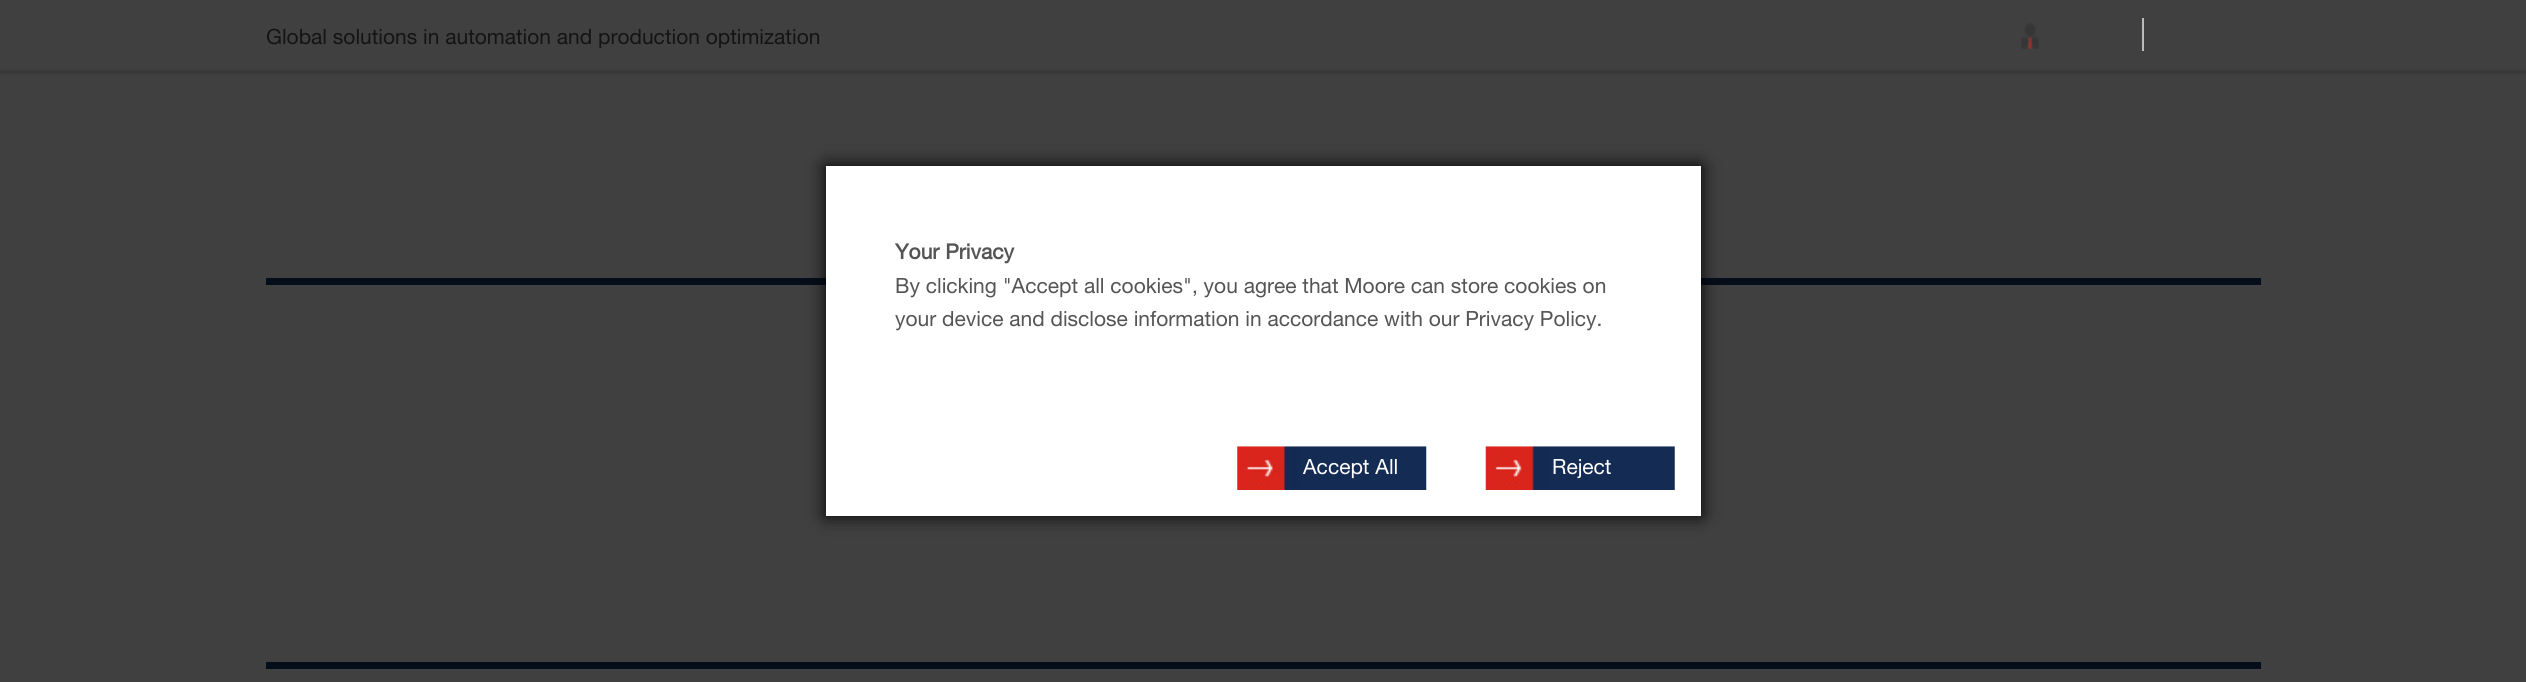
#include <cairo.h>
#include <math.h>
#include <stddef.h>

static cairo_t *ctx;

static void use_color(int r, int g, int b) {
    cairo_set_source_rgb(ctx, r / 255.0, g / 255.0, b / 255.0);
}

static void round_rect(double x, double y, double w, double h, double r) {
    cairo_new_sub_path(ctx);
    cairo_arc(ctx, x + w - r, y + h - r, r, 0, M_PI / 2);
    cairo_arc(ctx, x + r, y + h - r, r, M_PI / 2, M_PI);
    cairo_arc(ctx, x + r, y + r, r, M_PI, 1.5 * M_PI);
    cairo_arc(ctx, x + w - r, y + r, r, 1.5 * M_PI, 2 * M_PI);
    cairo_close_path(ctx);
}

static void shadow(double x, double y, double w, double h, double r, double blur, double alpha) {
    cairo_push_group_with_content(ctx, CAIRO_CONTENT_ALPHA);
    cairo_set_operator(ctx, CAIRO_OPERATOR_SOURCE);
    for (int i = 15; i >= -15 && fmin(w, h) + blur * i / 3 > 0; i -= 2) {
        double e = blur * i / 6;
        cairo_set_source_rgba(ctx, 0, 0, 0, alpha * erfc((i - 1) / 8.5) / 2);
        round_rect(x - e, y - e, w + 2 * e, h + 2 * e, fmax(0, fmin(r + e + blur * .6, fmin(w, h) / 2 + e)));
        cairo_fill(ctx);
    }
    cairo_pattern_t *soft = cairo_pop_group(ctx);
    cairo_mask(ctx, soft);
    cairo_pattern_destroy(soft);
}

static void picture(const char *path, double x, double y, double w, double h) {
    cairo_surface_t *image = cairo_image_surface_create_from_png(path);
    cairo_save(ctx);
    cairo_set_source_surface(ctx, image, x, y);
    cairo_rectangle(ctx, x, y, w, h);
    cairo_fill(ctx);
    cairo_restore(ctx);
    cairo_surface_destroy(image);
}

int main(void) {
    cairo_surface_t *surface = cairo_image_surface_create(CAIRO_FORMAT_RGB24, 2526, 682);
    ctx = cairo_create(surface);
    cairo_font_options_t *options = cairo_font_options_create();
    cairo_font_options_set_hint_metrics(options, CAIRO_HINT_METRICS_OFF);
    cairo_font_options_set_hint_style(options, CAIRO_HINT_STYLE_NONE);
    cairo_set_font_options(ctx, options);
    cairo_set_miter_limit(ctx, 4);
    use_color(64, 64, 64);
    cairo_paint(ctx);
    use_color(57, 57, 58);
    cairo_rectangle(ctx, 0, 70, 2526, 4);
    cairo_fill(ctx);
    cairo_select_font_face(ctx, "Helvetica Neue", CAIRO_FONT_SLANT_NORMAL, CAIRO_FONT_WEIGHT_NORMAL);
    cairo_set_font_size(ctx, 21);
    use_color(20, 20, 20);
    cairo_move_to(ctx, 266, 44);
    cairo_show_text(ctx, "Global solutions in automation and production optimization");
    picture("img1.png", 2021, 23, 18, 26);
    use_color(187, 187, 187);
    cairo_rectangle(ctx, 2142, 18, 2, 33);
    cairo_fill(ctx);
    use_color(6, 13, 26);
    cairo_rectangle(ctx, 266, 278, 1995, 7);
    cairo_fill(ctx);
    use_color(0, 0, 0);
    shadow(826, 166, 875, 350, 0, 9, 1);
    use_color(255, 255, 255);
    cairo_rectangle(ctx, 826, 166, 875, 350);
    cairo_fill(ctx);
    cairo_select_font_face(ctx, "Helvetica Neue", CAIRO_FONT_SLANT_NORMAL, CAIRO_FONT_WEIGHT_BOLD);
    use_color(85, 85, 85);
    cairo_move_to(ctx, 895, 259);
    cairo_show_text(ctx, "Your Privacy");
    cairo_select_font_face(ctx, "Helvetica Neue", CAIRO_FONT_SLANT_NORMAL, CAIRO_FONT_WEIGHT_NORMAL);
    cairo_move_to(ctx, 895, 293);
    cairo_show_text(ctx, "By clicking \"Accept all cookies\", you agree that Moore can store cookies on");
    cairo_move_to(ctx, 895, 326);
    cairo_show_text(ctx, "your device and disclose information in accordance with our Privacy Policy.");
    picture("img2.png", 1237, 446, 190, 44);
    use_color(255, 255, 255);
    cairo_move_to(ctx, 1303, 474);
    cairo_show_text(ctx, "Accept All");
    picture("img3.png", 1485, 446, 190, 44);
    cairo_move_to(ctx, 1552, 474);
    cairo_show_text(ctx, "Reject");
    use_color(6, 13, 26);
    cairo_rectangle(ctx, 266, 662, 1995, 7);
    cairo_fill(ctx);
    cairo_surface_write_to_png(surface, "result.png");
    cairo_font_options_destroy(options);
    cairo_destroy(ctx);
    cairo_surface_destroy(surface);
    return 0;
}
